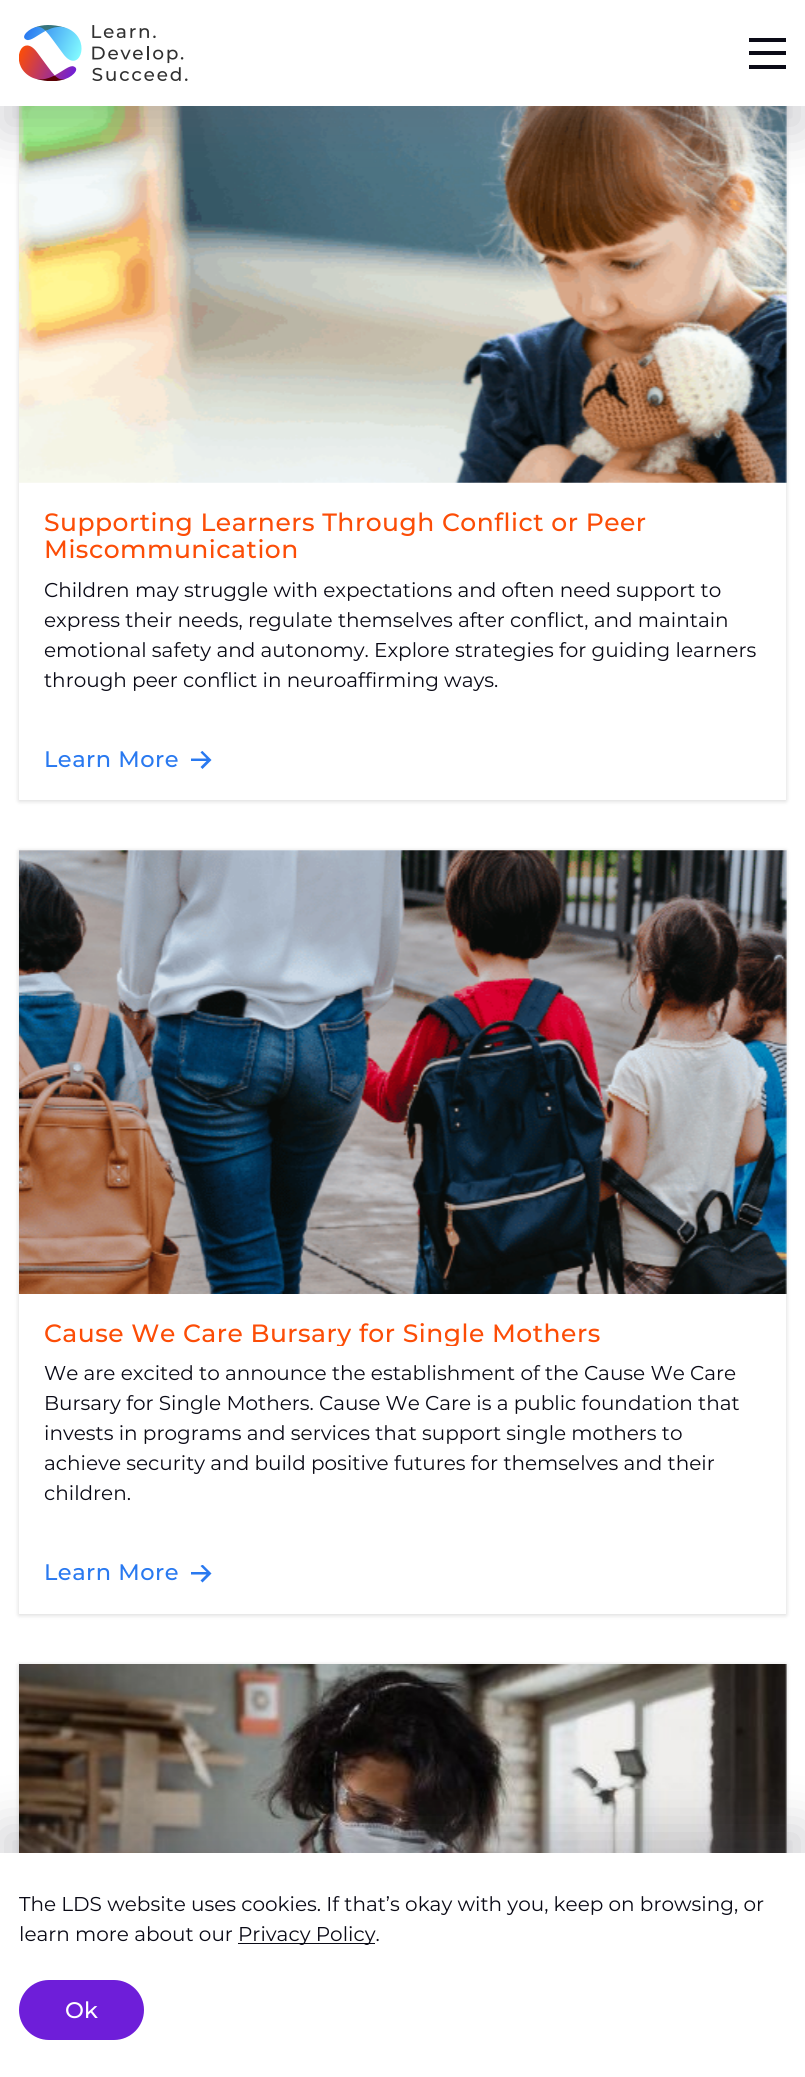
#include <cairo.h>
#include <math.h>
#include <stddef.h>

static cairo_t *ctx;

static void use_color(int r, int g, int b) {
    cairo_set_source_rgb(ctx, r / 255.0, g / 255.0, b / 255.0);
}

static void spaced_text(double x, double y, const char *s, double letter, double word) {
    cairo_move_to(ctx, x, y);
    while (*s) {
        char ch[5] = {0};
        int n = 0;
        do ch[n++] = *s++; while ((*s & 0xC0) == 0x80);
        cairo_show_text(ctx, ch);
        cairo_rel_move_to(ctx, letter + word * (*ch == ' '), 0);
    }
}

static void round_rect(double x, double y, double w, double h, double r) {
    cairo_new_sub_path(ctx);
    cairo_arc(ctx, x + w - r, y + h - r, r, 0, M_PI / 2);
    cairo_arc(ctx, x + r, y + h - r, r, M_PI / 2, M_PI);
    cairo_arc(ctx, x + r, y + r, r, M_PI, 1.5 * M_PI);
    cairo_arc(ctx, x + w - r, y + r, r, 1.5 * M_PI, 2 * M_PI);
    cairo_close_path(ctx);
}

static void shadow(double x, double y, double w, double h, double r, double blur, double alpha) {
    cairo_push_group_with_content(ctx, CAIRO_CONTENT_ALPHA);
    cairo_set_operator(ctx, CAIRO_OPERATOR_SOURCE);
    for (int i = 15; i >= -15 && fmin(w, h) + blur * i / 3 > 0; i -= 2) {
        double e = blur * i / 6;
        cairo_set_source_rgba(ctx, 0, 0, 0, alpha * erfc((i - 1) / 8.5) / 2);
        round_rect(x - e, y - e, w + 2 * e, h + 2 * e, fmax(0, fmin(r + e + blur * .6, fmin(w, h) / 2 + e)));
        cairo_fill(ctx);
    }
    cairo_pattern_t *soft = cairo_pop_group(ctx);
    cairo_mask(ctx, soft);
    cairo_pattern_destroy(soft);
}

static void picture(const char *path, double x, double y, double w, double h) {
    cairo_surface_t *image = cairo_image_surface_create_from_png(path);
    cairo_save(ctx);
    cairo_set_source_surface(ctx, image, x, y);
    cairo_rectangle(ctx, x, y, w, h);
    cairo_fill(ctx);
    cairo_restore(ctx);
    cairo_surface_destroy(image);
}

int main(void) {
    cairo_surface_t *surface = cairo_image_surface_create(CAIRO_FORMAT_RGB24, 805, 2077);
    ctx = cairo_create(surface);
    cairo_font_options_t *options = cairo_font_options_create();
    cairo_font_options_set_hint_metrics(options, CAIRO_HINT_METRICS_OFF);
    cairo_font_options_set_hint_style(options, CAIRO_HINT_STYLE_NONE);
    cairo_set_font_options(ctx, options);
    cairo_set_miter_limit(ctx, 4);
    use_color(255, 255, 255);
    cairo_paint(ctx);
    cairo_save(ctx);
    cairo_set_fill_rule(ctx, CAIRO_FILL_RULE_EVEN_ODD);
    cairo_new_path(ctx);
    cairo_move_to(ctx, 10, 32);
    cairo_line_to(ctx, 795, 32);
    cairo_line_to(ctx, 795, 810);
    cairo_line_to(ctx, 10, 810);
    cairo_close_path(ctx);
    cairo_move_to(ctx, 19, 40);
    cairo_line_to(ctx, 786, 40);
    cairo_line_to(ctx, 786, 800);
    cairo_line_to(ctx, 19, 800);
    cairo_close_path(ctx);
    cairo_clip(ctx);
    use_color(0, 0, 0);
    shadow(19, 41, 767, 760, 0, 2.5, 0.16);
    cairo_restore(ctx);
    picture("img2.png", 19, 106, 768, 377);
    use_color(100, 100, 111);
    shadow(0, 25, 805, 106, 0, 24.5, 0.3);
    use_color(255, 255, 255);
    cairo_rectangle(ctx, 0, 0, 805, 106);
    cairo_fill(ctx);
    picture("img1.png", 19, 25, 169, 56);
    use_color(10, 10, 22);
    cairo_rectangle(ctx, 749, 38, 37, 4);
    cairo_fill(ctx);
    cairo_rectangle(ctx, 749, 51, 37, 4);
    cairo_fill(ctx);
    cairo_rectangle(ctx, 749, 65, 37, 4);
    cairo_fill(ctx);
    cairo_select_font_face(ctx, "Montserrat Medium", CAIRO_FONT_SLANT_NORMAL, CAIRO_FONT_WEIGHT_NORMAL);
    cairo_set_font_size(ctx, 25);
    use_color(252, 77, 7);
    spaced_text(44, 531, "Supporting Learners Through Conflict or Peer", 0.5, 0);
    spaced_text(44, 558, "Miscommunication", 0.5, 0);
    cairo_select_font_face(ctx, "Montserrat", CAIRO_FONT_SLANT_NORMAL, CAIRO_FONT_WEIGHT_NORMAL);
    cairo_set_font_size(ctx, 20);
    use_color(10, 10, 22);
    cairo_move_to(ctx, 44, 597);
    cairo_show_text(ctx, "Children may struggle with expectations and often need support to");
    cairo_move_to(ctx, 44, 627);
    cairo_show_text(ctx, "express their needs, regulate themselves after conflict, and maintain");
    cairo_move_to(ctx, 44, 657);
    cairo_show_text(ctx, "emotional safety and autonomy. Explore strategies for guiding learners");
    cairo_move_to(ctx, 44, 687);
    cairo_show_text(ctx, "through peer conflict in neuroaffirming ways.");
    cairo_select_font_face(ctx, "Montserrat Medium", CAIRO_FONT_SLANT_NORMAL, CAIRO_FONT_WEIGHT_NORMAL);
    cairo_set_font_size(ctx, 22.5);
    use_color(41, 121, 240);
    spaced_text(44, 767, "Learn More", 0.5, 0);
    cairo_new_path(ctx);
    cairo_move_to(ctx, 202.5, 769);
    cairo_line_to(ctx, 211.5, 760);
    cairo_line_to(ctx, 202.5, 751);
    cairo_line_to(ctx, 202, 751);
    cairo_line_to(ctx, 200.5, 752.5);
    cairo_line_to(ctx, 206.5, 758.5);
    cairo_line_to(ctx, 191, 758.5);
    cairo_line_to(ctx, 191, 761);
    cairo_line_to(ctx, 206.5, 761);
    cairo_line_to(ctx, 200.5, 767);
    cairo_close_path(ctx);
    cairo_fill(ctx);
    use_color(0, 0, 0);
    shadow(19, 851, 767, 764, 0, 2.5, 0.16);
    use_color(255, 255, 255);
    cairo_rectangle(ctx, 19, 850, 767, 764);
    cairo_fill(ctx);
    picture("img3.png", 19, 850, 768, 444);
    cairo_save(ctx);
    cairo_rectangle(ctx, 44, 1319, 717, 27);
    cairo_clip(ctx);
    cairo_set_font_size(ctx, 25);
    use_color(252, 77, 7);
    spaced_text(44, 1342, "Cause We Care Bursary for Single Mothers", 0.5, 0);
    cairo_restore(ctx);
    cairo_select_font_face(ctx, "Montserrat", CAIRO_FONT_SLANT_NORMAL, CAIRO_FONT_WEIGHT_NORMAL);
    cairo_set_font_size(ctx, 20);
    use_color(10, 10, 22);
    cairo_move_to(ctx, 44, 1380);
    cairo_show_text(ctx, "We are excited to announce the establishment of the Cause We Care");
    cairo_move_to(ctx, 44, 1410);
    cairo_show_text(ctx, "Bursary for Single Mothers. Cause We Care is a public foundation that");
    cairo_move_to(ctx, 44, 1440);
    cairo_show_text(ctx, "invests in programs and services that support single mothers to");
    cairo_move_to(ctx, 44, 1470);
    cairo_show_text(ctx, "achieve security and build positive futures for themselves and their");
    cairo_move_to(ctx, 44, 1500);
    cairo_show_text(ctx, "children.");
    cairo_select_font_face(ctx, "Montserrat Medium", CAIRO_FONT_SLANT_NORMAL, CAIRO_FONT_WEIGHT_NORMAL);
    cairo_set_font_size(ctx, 22.5);
    use_color(41, 121, 240);
    spaced_text(44, 1580, "Learn More", 0.5, 0);
    cairo_new_path(ctx);
    cairo_move_to(ctx, 202.5, 1582.5);
    cairo_line_to(ctx, 211.5, 1573.5);
    cairo_line_to(ctx, 203, 1565);
    cairo_line_to(ctx, 202, 1565);
    cairo_line_to(ctx, 200.5, 1566);
    cairo_line_to(ctx, 206.5, 1572);
    cairo_line_to(ctx, 191, 1572);
    cairo_line_to(ctx, 191, 1574.5);
    cairo_line_to(ctx, 206.5, 1574.5);
    cairo_line_to(ctx, 200.5, 1580.5);
    cairo_close_path(ctx);
    cairo_fill(ctx);
    use_color(0, 0, 0);
    shadow(19, 1665, 767, 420, 0, 2.5, 0.16);
    picture("img4.png", 19, 1664, 768, 189);
    use_color(100, 100, 111);
    shadow(0, 1828, 805, 225, 0, 24.5, 0.3);
    use_color(255, 255, 255);
    cairo_rectangle(ctx, 0, 1853, 805, 224);
    cairo_fill(ctx);
    cairo_select_font_face(ctx, "Montserrat", CAIRO_FONT_SLANT_NORMAL, CAIRO_FONT_WEIGHT_NORMAL);
    cairo_set_font_size(ctx, 20);
    use_color(10, 10, 22);
    cairo_move_to(ctx, 19, 1911);
    cairo_show_text(ctx, "The LDS website uses cookies. If that’s okay with you, keep on browsing, or");
    cairo_move_to(ctx, 19, 1941);
    cairo_show_text(ctx, "learn more about our");
    cairo_rectangle(ctx, 238, 1943, 137, 1);
    cairo_fill(ctx);
    cairo_move_to(ctx, 238, 1941);
    cairo_show_text(ctx, "Privacy Policy.");
    use_color(110, 30, 217);
    round_rect(19, 1980, 125, 60, 30);
    cairo_fill(ctx);
    cairo_select_font_face(ctx, "Montserrat Medium", CAIRO_FONT_SLANT_NORMAL, CAIRO_FONT_WEIGHT_NORMAL);
    cairo_set_font_size(ctx, 22.5);
    use_color(255, 255, 255);
    cairo_move_to(ctx, 65, 2018);
    cairo_show_text(ctx, "Ok");
    cairo_surface_write_to_png(surface, "result.png");
    cairo_font_options_destroy(options);
    cairo_destroy(ctx);
    cairo_surface_destroy(surface);
    return 0;
}
